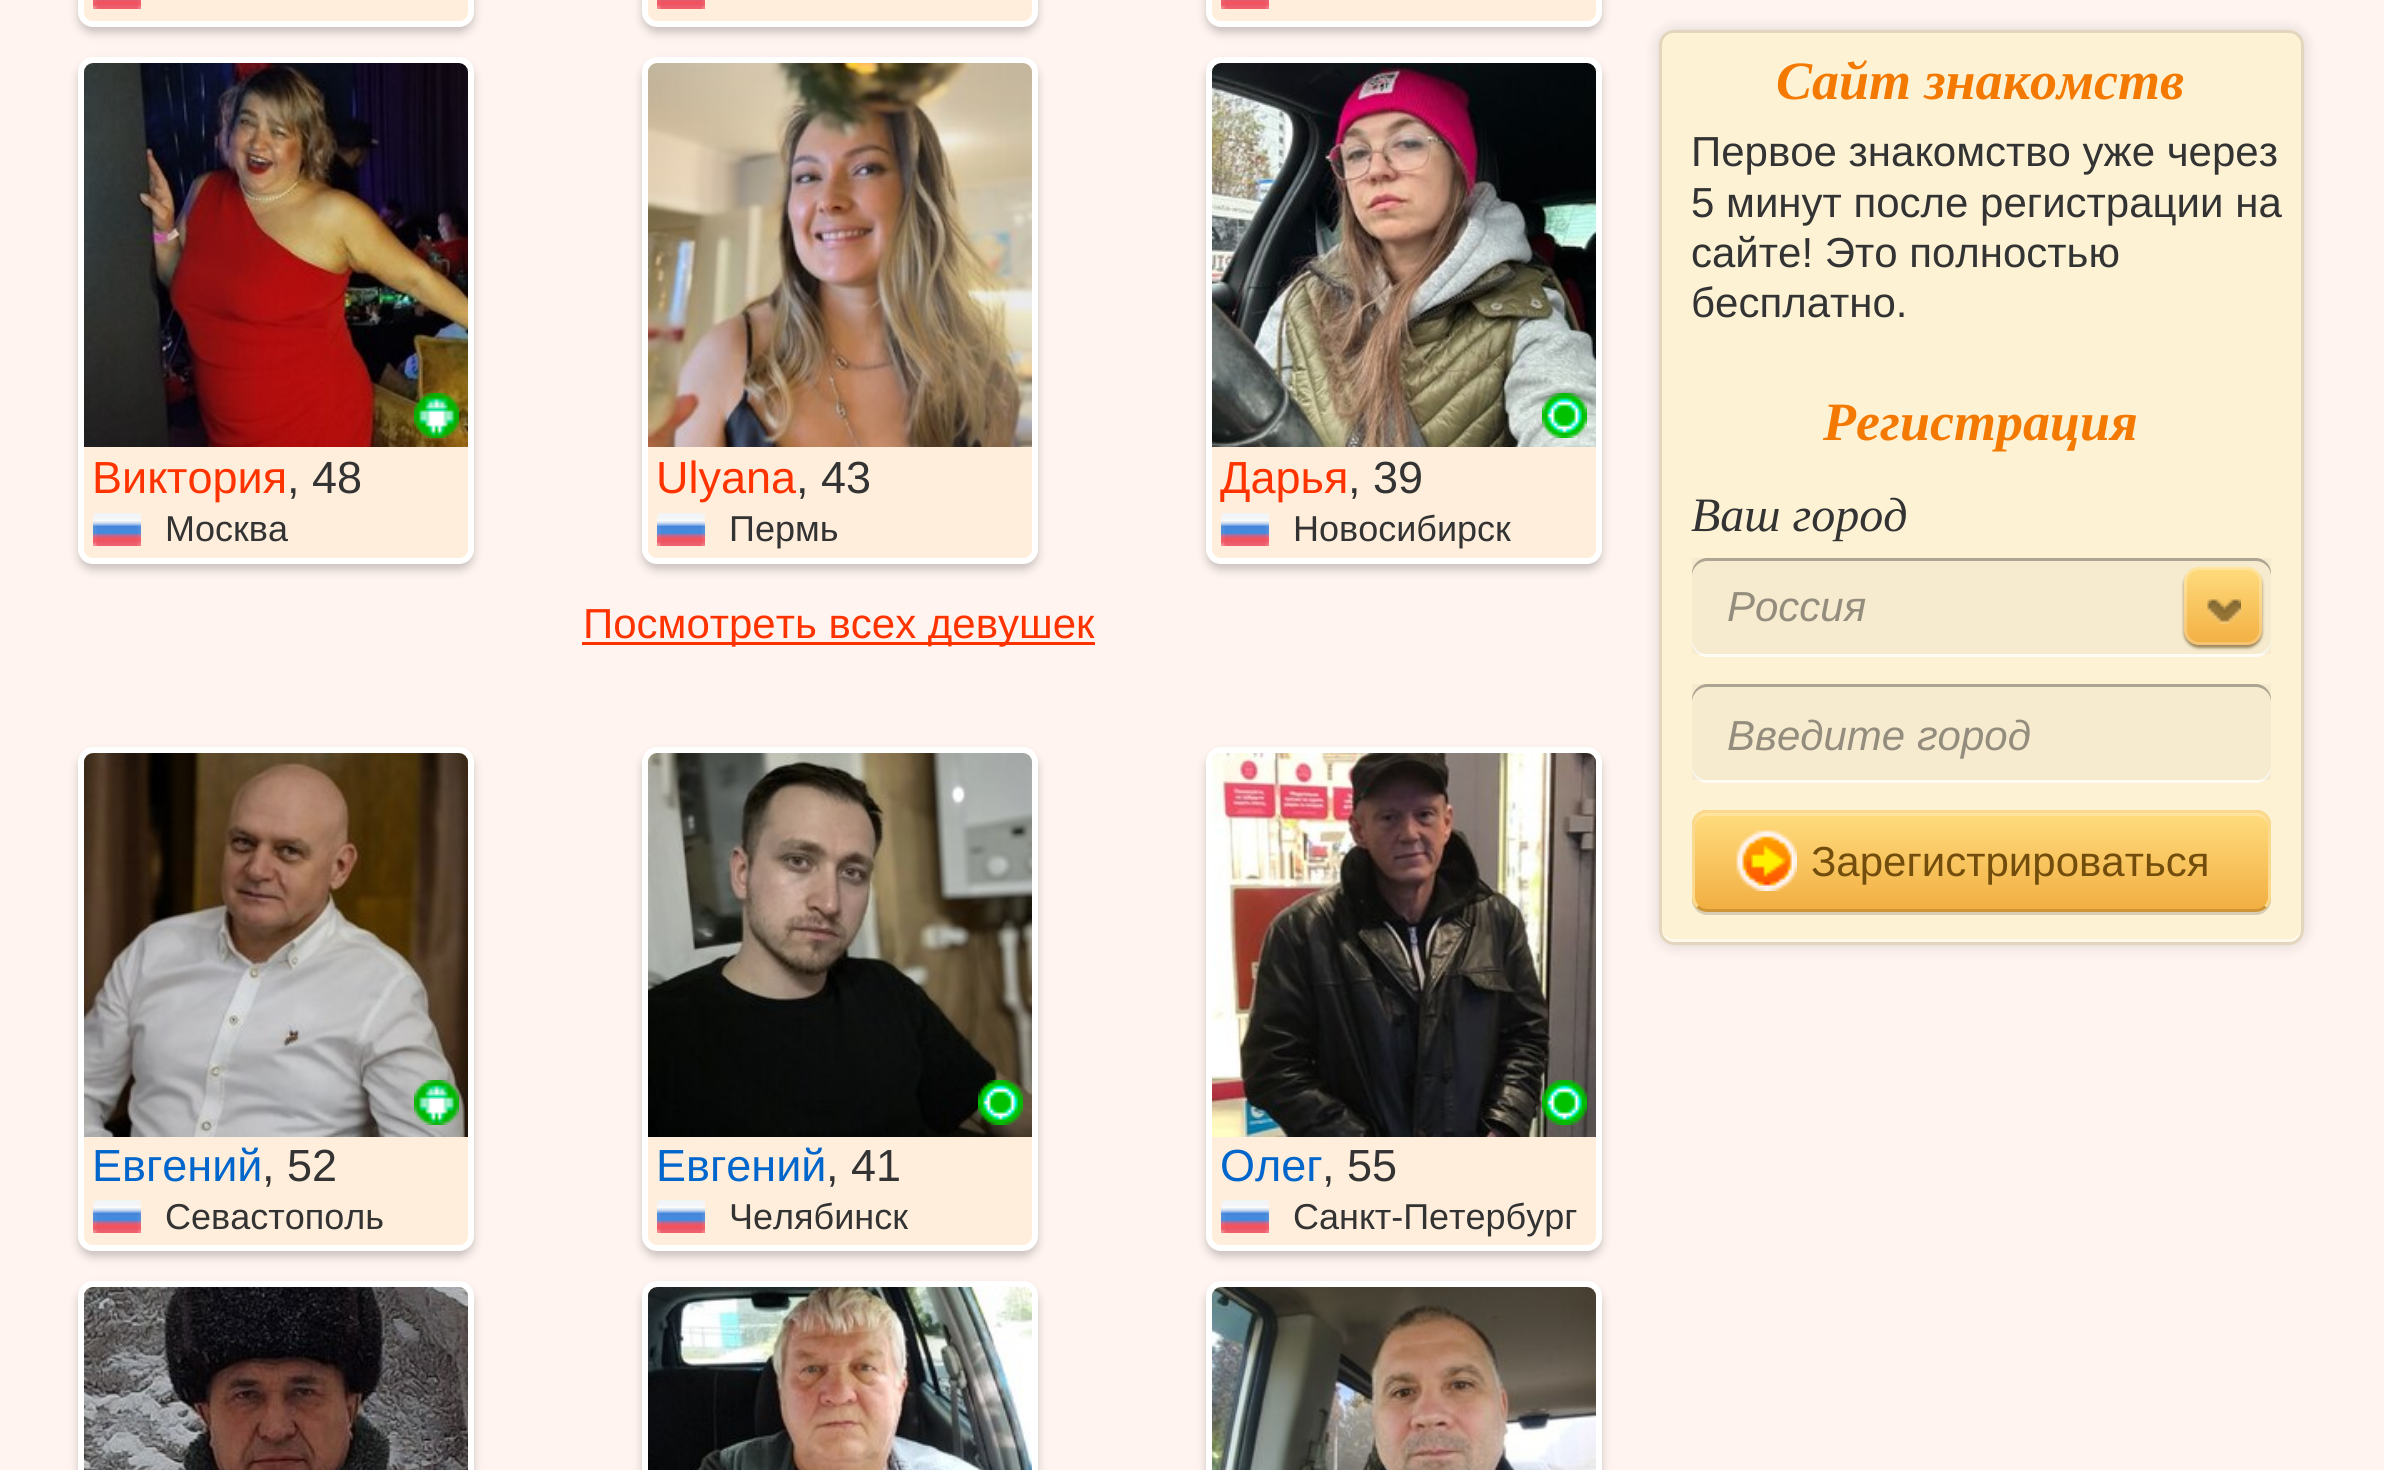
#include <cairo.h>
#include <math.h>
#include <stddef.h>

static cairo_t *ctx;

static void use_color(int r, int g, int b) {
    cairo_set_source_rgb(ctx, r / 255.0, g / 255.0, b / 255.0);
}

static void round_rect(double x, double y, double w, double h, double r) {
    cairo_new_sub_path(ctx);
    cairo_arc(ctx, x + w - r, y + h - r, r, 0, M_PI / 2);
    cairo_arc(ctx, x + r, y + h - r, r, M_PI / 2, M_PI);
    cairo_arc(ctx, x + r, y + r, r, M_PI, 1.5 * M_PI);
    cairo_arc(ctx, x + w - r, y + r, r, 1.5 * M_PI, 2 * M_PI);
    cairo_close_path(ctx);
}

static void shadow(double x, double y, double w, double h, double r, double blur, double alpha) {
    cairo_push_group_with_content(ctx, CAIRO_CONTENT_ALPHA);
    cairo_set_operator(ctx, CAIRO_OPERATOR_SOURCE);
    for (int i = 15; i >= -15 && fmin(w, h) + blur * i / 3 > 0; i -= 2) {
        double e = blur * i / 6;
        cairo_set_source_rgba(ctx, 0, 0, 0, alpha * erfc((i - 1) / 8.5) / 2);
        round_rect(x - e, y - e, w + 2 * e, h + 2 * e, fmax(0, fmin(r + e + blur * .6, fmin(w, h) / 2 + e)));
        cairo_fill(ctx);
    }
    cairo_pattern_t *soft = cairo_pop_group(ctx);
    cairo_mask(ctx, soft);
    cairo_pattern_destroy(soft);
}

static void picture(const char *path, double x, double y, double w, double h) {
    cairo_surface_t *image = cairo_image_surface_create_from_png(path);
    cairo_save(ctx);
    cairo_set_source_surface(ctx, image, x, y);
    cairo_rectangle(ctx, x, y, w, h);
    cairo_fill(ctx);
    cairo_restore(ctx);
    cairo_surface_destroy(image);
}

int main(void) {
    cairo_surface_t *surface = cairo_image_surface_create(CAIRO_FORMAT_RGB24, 2384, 1470);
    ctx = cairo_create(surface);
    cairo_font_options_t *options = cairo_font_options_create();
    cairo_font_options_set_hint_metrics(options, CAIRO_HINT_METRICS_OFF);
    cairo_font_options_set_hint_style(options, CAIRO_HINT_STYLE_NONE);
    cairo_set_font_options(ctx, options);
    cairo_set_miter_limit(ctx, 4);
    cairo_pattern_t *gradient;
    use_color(255, 244, 240);
    cairo_paint(ctx);
    use_color(0, 0, 0);
    shadow(78, -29, 396, 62, 15, 4.5, 0.2);
    use_color(255, 238, 219);
    round_rect(81, -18, 390, 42, 12);
    cairo_fill_preserve(ctx);
    use_color(255, 255, 255);
    cairo_set_line_width(ctx, 6);
    cairo_stroke(ctx);
    picture("img1.png", 93, 0, 48, 9);
    use_color(0, 0, 0);
    shadow(642, -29, 396, 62, 15, 4.5, 0.2);
    use_color(255, 238, 219);
    round_rect(645, -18, 390, 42, 12);
    cairo_fill_preserve(ctx);
    use_color(255, 255, 255);
    cairo_stroke(ctx);
    picture("img1.png", 657, 0, 48, 9);
    use_color(0, 0, 0);
    shadow(1206, -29, 396, 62, 15, 4.5, 0.2);
    use_color(255, 238, 219);
    round_rect(1209, -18, 390, 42, 12);
    cairo_fill_preserve(ctx);
    use_color(255, 255, 255);
    cairo_stroke(ctx);
    picture("img2.png", 1221, 0, 48, 9);
    use_color(0, 0, 0);
    shadow(78, 63, 396, 507, 15, 4.5, 0.2);
    use_color(255, 238, 219);
    round_rect(81, 60, 390, 501, 12);
    cairo_fill_preserve(ctx);
    use_color(255, 255, 255);
    cairo_stroke(ctx);
    picture("img3.png", 84, 63, 384, 384);
    picture("img4.png", 414, 393, 45, 45);
    cairo_select_font_face(ctx, "Liberation Sans", CAIRO_FONT_SLANT_NORMAL, CAIRO_FONT_WEIGHT_NORMAL);
    cairo_set_font_size(ctx, 45);
    use_color(255, 51, 0);
    cairo_move_to(ctx, 92, 493);
    cairo_show_text(ctx, "Виктория");
    use_color(51, 51, 51);
    cairo_move_to(ctx, 287, 493);
    cairo_show_text(ctx, ", 48");
    picture("img5.png", 93, 513, 48, 33);
    cairo_set_font_size(ctx, 36);
    cairo_move_to(ctx, 165, 541);
    cairo_show_text(ctx, "Москва");
    use_color(0, 0, 0);
    shadow(642, 63, 396, 507, 15, 4.5, 0.2);
    use_color(255, 238, 219);
    round_rect(645, 60, 390, 501, 12);
    cairo_fill_preserve(ctx);
    use_color(255, 255, 255);
    cairo_stroke(ctx);
    picture("img6.png", 648, 63, 384, 384);
    cairo_set_font_size(ctx, 45);
    use_color(255, 51, 0);
    cairo_move_to(ctx, 656, 493);
    cairo_show_text(ctx, "Ulyana");
    use_color(51, 51, 51);
    cairo_move_to(ctx, 796, 493);
    cairo_show_text(ctx, ", 43");
    picture("img5.png", 657, 513, 48, 33);
    cairo_set_font_size(ctx, 36);
    cairo_move_to(ctx, 729, 541);
    cairo_show_text(ctx, "Пермь");
    use_color(0, 0, 0);
    shadow(1206, 63, 396, 507, 15, 4.5, 0.2);
    use_color(255, 238, 219);
    round_rect(1209, 60, 390, 501, 12);
    cairo_fill_preserve(ctx);
    use_color(255, 255, 255);
    cairo_stroke(ctx);
    picture("img7.png", 1212, 63, 384, 384);
    picture("img8.png", 1542, 393, 45, 45);
    cairo_set_font_size(ctx, 45);
    use_color(255, 51, 0);
    cairo_move_to(ctx, 1220, 493);
    cairo_show_text(ctx, "Дарья");
    use_color(51, 51, 51);
    cairo_move_to(ctx, 1348, 493);
    cairo_show_text(ctx, ", 39");
    picture("img9.png", 1221, 513, 48, 33);
    cairo_set_font_size(ctx, 36);
    cairo_move_to(ctx, 1293, 541);
    cairo_show_text(ctx, "Новосибирск");
    use_color(255, 51, 0);
    cairo_rectangle(ctx, 582, 642, 513, 3);
    cairo_fill(ctx);
    cairo_set_font_size(ctx, 42);
    cairo_move_to(ctx, 583, 638);
    cairo_show_text(ctx, "Посмотреть всех девушек");
    use_color(0, 0, 0);
    shadow(78, 753, 396, 504, 15, 4.5, 0.2);
    use_color(255, 238, 219);
    round_rect(81, 750, 390, 498, 12);
    cairo_fill_preserve(ctx);
    use_color(255, 255, 255);
    cairo_stroke(ctx);
    picture("img10.png", 84, 753, 384, 384);
    picture("img11.png", 414, 1080, 45, 45);
    cairo_set_font_size(ctx, 45);
    use_color(0, 102, 204);
    cairo_move_to(ctx, 92, 1181);
    cairo_show_text(ctx, "Евгений");
    use_color(51, 51, 51);
    cairo_move_to(ctx, 262, 1181);
    cairo_show_text(ctx, ", 52");
    picture("img5.png", 93, 1200, 48, 33);
    cairo_set_font_size(ctx, 36);
    cairo_move_to(ctx, 165, 1229);
    cairo_show_text(ctx, "Севастополь");
    use_color(0, 0, 0);
    shadow(642, 753, 396, 504, 15, 4.5, 0.2);
    use_color(255, 238, 219);
    round_rect(645, 750, 390, 498, 12);
    cairo_fill_preserve(ctx);
    use_color(255, 255, 255);
    cairo_stroke(ctx);
    picture("img12.png", 648, 753, 384, 384);
    picture("img13.png", 978, 1080, 45, 45);
    cairo_set_font_size(ctx, 45);
    use_color(0, 102, 204);
    cairo_move_to(ctx, 656, 1181);
    cairo_show_text(ctx, "Евгений");
    use_color(51, 51, 51);
    cairo_move_to(ctx, 826, 1181);
    cairo_show_text(ctx, ", 41");
    picture("img5.png", 657, 1200, 48, 33);
    cairo_set_font_size(ctx, 36);
    cairo_move_to(ctx, 729, 1229);
    cairo_show_text(ctx, "Челябинск");
    use_color(0, 0, 0);
    shadow(1206, 753, 396, 504, 15, 4.5, 0.2);
    use_color(255, 238, 219);
    round_rect(1209, 750, 390, 498, 12);
    cairo_fill_preserve(ctx);
    use_color(255, 255, 255);
    cairo_stroke(ctx);
    picture("img14.png", 1212, 753, 384, 384);
    picture("img15.png", 1542, 1080, 45, 45);
    cairo_set_font_size(ctx, 45);
    use_color(0, 102, 204);
    cairo_move_to(ctx, 1220, 1181);
    cairo_show_text(ctx, "Олег");
    use_color(51, 51, 51);
    cairo_move_to(ctx, 1322, 1181);
    cairo_show_text(ctx, ", 55");
    picture("img9.png", 1221, 1200, 48, 33);
    cairo_set_font_size(ctx, 36);
    cairo_move_to(ctx, 1293, 1229);
    cairo_show_text(ctx, "Санкт-Петербург");
    use_color(0, 0, 0);
    shadow(78, 1287, 396, 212, 15, 4.5, 0.2);
    use_color(255, 238, 219);
    round_rect(81, 1284, 390, 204, 12);
    cairo_fill_preserve(ctx);
    use_color(255, 255, 255);
    cairo_stroke(ctx);
    picture("img16.png", 84, 1287, 384, 183);
    use_color(0, 0, 0);
    shadow(642, 1287, 396, 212, 15, 4.5, 0.2);
    use_color(255, 238, 219);
    round_rect(645, 1284, 390, 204, 12);
    cairo_fill_preserve(ctx);
    use_color(255, 255, 255);
    cairo_stroke(ctx);
    picture("img17.png", 648, 1287, 384, 183);
    use_color(0, 0, 0);
    shadow(1206, 1287, 396, 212, 15, 4.5, 0.2);
    use_color(255, 238, 219);
    round_rect(1209, 1284, 390, 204, 12);
    cairo_fill_preserve(ctx);
    use_color(255, 255, 255);
    cairo_stroke(ctx);
    picture("img18.png", 1212, 1287, 384, 183);
    use_color(0, 0, 0);
    shadow(1659, 30, 645, 915, 15, 7.5, 0.15);
    use_color(253, 242, 212);
    round_rect(1659, 30, 645, 915, 15);
    cairo_fill(ctx);
    use_color(254, 249, 234);
    cairo_new_path(ctx);
    cairo_move_to(ctx, 1662, 927);
    cairo_line_to(ctx, 1662, 930);
    cairo_curve_to(ctx, 1662, 937, 1667, 942, 1674, 942);
    cairo_line_to(ctx, 2289, 942);
    cairo_curve_to(ctx, 2296, 942, 2301, 937, 2301, 930);
    cairo_line_to(ctx, 2301, 927);
    cairo_curve_to(ctx, 2301, 934, 2296, 939, 2289, 939);
    cairo_line_to(ctx, 1674, 939);
    cairo_curve_to(ctx, 1667, 939, 1662, 934, 1662, 927);
    cairo_close_path(ctx);
    cairo_fill(ctx);
    round_rect(1660.5, 31.5, 642, 912, 13.5);
    use_color(228, 213, 190);
    cairo_set_line_width(ctx, 3);
    cairo_stroke(ctx);
    cairo_select_font_face(ctx, "Liberation Serif", CAIRO_FONT_SLANT_ITALIC, CAIRO_FONT_WEIGHT_BOLD);
    cairo_set_font_size(ctx, 54);
    use_color(244, 121, 0);
    cairo_move_to(ctx, 1776, 99);
    cairo_show_text(ctx, "Сайт знакомств");
    cairo_select_font_face(ctx, "Liberation Sans", CAIRO_FONT_SLANT_NORMAL, CAIRO_FONT_WEIGHT_NORMAL);
    cairo_set_font_size(ctx, 42);
    use_color(51, 51, 51);
    cairo_move_to(ctx, 1691, 166);
    cairo_show_text(ctx, "Первое знакомство уже через");
    cairo_move_to(ctx, 1691, 217);
    cairo_show_text(ctx, "5 минут после регистрации на");
    cairo_move_to(ctx, 1691, 267);
    cairo_show_text(ctx, "сайте! Это полностью");
    cairo_move_to(ctx, 1691, 317);
    cairo_show_text(ctx, "бесплатно.");
    cairo_select_font_face(ctx, "Liberation Serif", CAIRO_FONT_SLANT_ITALIC, CAIRO_FONT_WEIGHT_BOLD);
    cairo_set_font_size(ctx, 54);
    use_color(244, 121, 0);
    cairo_move_to(ctx, 1823, 440);
    cairo_show_text(ctx, "Регистрация");
    cairo_select_font_face(ctx, "Liberation Serif", CAIRO_FONT_SLANT_ITALIC, CAIRO_FONT_WEIGHT_NORMAL);
    cairo_set_font_size(ctx, 48);
    use_color(51, 51, 51);
    cairo_move_to(ctx, 1691, 531);
    cairo_show_text(ctx, "Ваш город");
    use_color(255, 252, 246);
    cairo_new_path(ctx);
    cairo_move_to(ctx, 1692, 639);
    cairo_line_to(ctx, 1692, 642);
    cairo_curve_to(ctx, 1692, 650, 1699, 657, 1707, 657);
    cairo_line_to(ctx, 2256, 657);
    cairo_curve_to(ctx, 2264, 657, 2271, 650, 2271, 642);
    cairo_line_to(ctx, 2271, 639);
    cairo_curve_to(ctx, 2271, 647, 2264, 654, 2256, 654);
    cairo_line_to(ctx, 1707, 654);
    cairo_curve_to(ctx, 1699, 654, 1692, 647, 1692, 639);
    cairo_close_path(ctx);
    cairo_fill(ctx);
    cairo_set_source_rgba(ctx, 0, 0, 0, 0.03);
    cairo_rectangle(ctx, 1692, 558, 579, 96);
    cairo_fill(ctx);
    cairo_set_source_rgba(ctx, 0, 0, 0, 0.3);
    cairo_new_path(ctx);
    cairo_move_to(ctx, 1707, 561);
    cairo_line_to(ctx, 2256, 561);
    cairo_curve_to(ctx, 2264, 561, 2271, 568, 2271, 576);
    cairo_line_to(ctx, 2271, 573);
    cairo_curve_to(ctx, 2271, 565, 2264, 558, 2256, 558);
    cairo_line_to(ctx, 1707, 558);
    cairo_curve_to(ctx, 1699, 558, 1692, 565, 1692, 573);
    cairo_line_to(ctx, 1692, 576);
    cairo_curve_to(ctx, 1692, 568, 1699, 561, 1707, 561);
    cairo_close_path(ctx);
    cairo_fill(ctx);
    cairo_select_font_face(ctx, "Liberation Sans", CAIRO_FONT_SLANT_ITALIC, CAIRO_FONT_WEIGHT_NORMAL);
    cairo_set_font_size(ctx, 42);
    use_color(148, 141, 126);
    cairo_move_to(ctx, 1727, 621);
    cairo_show_text(ctx, "Россия");
    use_color(125, 97, 51);
    shadow(2184, 570, 78, 78, 15, 1.5, 0.75);
    gradient = cairo_pattern_create_linear(2223, 567, 2223, 645);
    cairo_pattern_add_color_stop_rgba(gradient, 0, 1, 0.863, 0.494, 1);
    cairo_pattern_add_color_stop_rgba(gradient, 1, 0.949, 0.686, 0.259, 1);
    cairo_set_source(ctx, gradient);
    cairo_pattern_destroy(gradient);
    round_rect(2184, 567, 78, 78, 15);
    cairo_fill(ctx);
    round_rect(2185.5, 568.5, 75, 75, 13.5);
    cairo_set_source_rgba(ctx, 1, 1, 1, 0.25);
    cairo_stroke(ctx);
    picture("img19.png", 2207, 599, 34, 25);
    use_color(255, 252, 246);
    cairo_new_path(ctx);
    cairo_move_to(ctx, 1692, 765);
    cairo_line_to(ctx, 1692, 768);
    cairo_curve_to(ctx, 1692, 776, 1699, 783, 1707, 783);
    cairo_line_to(ctx, 2256, 783);
    cairo_curve_to(ctx, 2264, 783, 2271, 776, 2271, 768);
    cairo_line_to(ctx, 2271, 765);
    cairo_curve_to(ctx, 2271, 773, 2264, 780, 2256, 780);
    cairo_line_to(ctx, 1707, 780);
    cairo_curve_to(ctx, 1699, 780, 1692, 773, 1692, 765);
    cairo_close_path(ctx);
    cairo_fill(ctx);
    cairo_set_source_rgba(ctx, 0, 0, 0, 0.03);
    cairo_rectangle(ctx, 1692, 684, 579, 96);
    cairo_fill(ctx);
    cairo_set_source_rgba(ctx, 0, 0, 0, 0.3);
    cairo_new_path(ctx);
    cairo_move_to(ctx, 1707, 687);
    cairo_line_to(ctx, 2256, 687);
    cairo_curve_to(ctx, 2264, 687, 2271, 694, 2271, 702);
    cairo_line_to(ctx, 2271, 699);
    cairo_curve_to(ctx, 2271, 691, 2264, 684, 2256, 684);
    cairo_line_to(ctx, 1707, 684);
    cairo_curve_to(ctx, 1699, 684, 1692, 691, 1692, 699);
    cairo_line_to(ctx, 1692, 702);
    cairo_curve_to(ctx, 1692, 694, 1699, 687, 1707, 687);
    cairo_close_path(ctx);
    cairo_fill(ctx);
    use_color(148, 141, 126);
    cairo_move_to(ctx, 1727, 750);
    cairo_show_text(ctx, "Введите город");
    use_color(215, 206, 180);
    cairo_new_path(ctx);
    cairo_move_to(ctx, 1692, 897);
    cairo_line_to(ctx, 1692, 900);
    cairo_curve_to(ctx, 1692, 908, 1699, 915, 1707, 915);
    cairo_line_to(ctx, 2256, 915);
    cairo_curve_to(ctx, 2264, 915, 2271, 908, 2271, 900);
    cairo_line_to(ctx, 2271, 897);
    cairo_curve_to(ctx, 2271, 905, 2264, 912, 2256, 912);
    cairo_line_to(ctx, 1707, 912);
    cairo_curve_to(ctx, 1699, 912, 1692, 905, 1692, 897);
    cairo_close_path(ctx);
    cairo_fill(ctx);
    use_color(242, 175, 66);
    round_rect(1692, 810, 579, 102, 15);
    cairo_fill(ctx);
    cairo_save(ctx);
    round_rect(1692, 810, 579, 102, 15);
    cairo_clip(ctx);
    gradient = cairo_pattern_create_linear(1982, 813, 1982, 909);
    cairo_pattern_add_color_stop_rgba(gradient, 0, 1, 0.863, 0.494, 1);
    cairo_pattern_add_color_stop_rgba(gradient, 1, 0.949, 0.686, 0.259, 1);
    cairo_set_source(ctx, gradient);
    cairo_pattern_destroy(gradient);
    cairo_rectangle(ctx, 1692, 813, 579, 96);
    cairo_fill(ctx);
    cairo_restore(ctx);
    cairo_set_source_rgba(ctx, 1, 1, 1, 0.25);
    cairo_new_path(ctx);
    cairo_move_to(ctx, 1707, 816);
    cairo_line_to(ctx, 2256, 816);
    cairo_curve_to(ctx, 2263, 816, 2268, 821, 2268, 828);
    cairo_curve_to(ctx, 2268, 820, 2265, 813, 2256, 813);
    cairo_line_to(ctx, 1705, 813);
    cairo_curve_to(ctx, 1697, 815, 1695, 821, 1695, 828);
    cairo_curve_to(ctx, 1695, 821, 1700, 816, 1707, 816);
    cairo_close_path(ctx);
    cairo_fill(ctx);
    cairo_new_path(ctx);
    cairo_move_to(ctx, 2265.5, 906.5);
    cairo_curve_to(ctx, 2263, 909, 2259.5, 910.5, 2256, 910.5);
    cairo_line_to(ctx, 1707, 910.5);
    cairo_curve_to(ctx, 1703.5, 910.5, 1700, 909, 1697.5, 906.5);
    cairo_set_source_rgba(ctx, 0, 0, 0, 0.15);
    cairo_stroke(ctx);
    cairo_new_path(ctx);
    cairo_move_to(ctx, 1697.5, 906.5);
    cairo_curve_to(ctx, 1695, 904, 1693.5, 900.5, 1693.5, 897);
    cairo_line_to(ctx, 1693.5, 825);
    cairo_curve_to(ctx, 1693.5, 821.5, 1695, 818, 1697.5, 815.5);
    cairo_curve_to(ctx, 1700, 813, 1703.5, 811.5, 1707, 811.5);
    cairo_line_to(ctx, 2256, 811.5);
    cairo_curve_to(ctx, 2259.5, 811.5, 2263, 813, 2265.5, 815.5);
    cairo_curve_to(ctx, 2268, 818, 2269.5, 821.5, 2269.5, 825);
    cairo_line_to(ctx, 2269.5, 897);
    cairo_curve_to(ctx, 2269.5, 900.5, 2268, 904, 2265.5, 906.5);
    use_color(251, 217, 143);
    cairo_stroke(ctx);
    picture("img20.png", 1736, 830, 61, 61);
    cairo_select_font_face(ctx, "Liberation Sans", CAIRO_FONT_SLANT_NORMAL, CAIRO_FONT_WEIGHT_NORMAL);
    use_color(114, 77, 12);
    cairo_move_to(ctx, 1811, 876);
    cairo_show_text(ctx, "Зарегистрироваться");
    cairo_surface_write_to_png(surface, "result.png");
    cairo_font_options_destroy(options);
    cairo_destroy(ctx);
    cairo_surface_destroy(surface);
    return 0;
}
